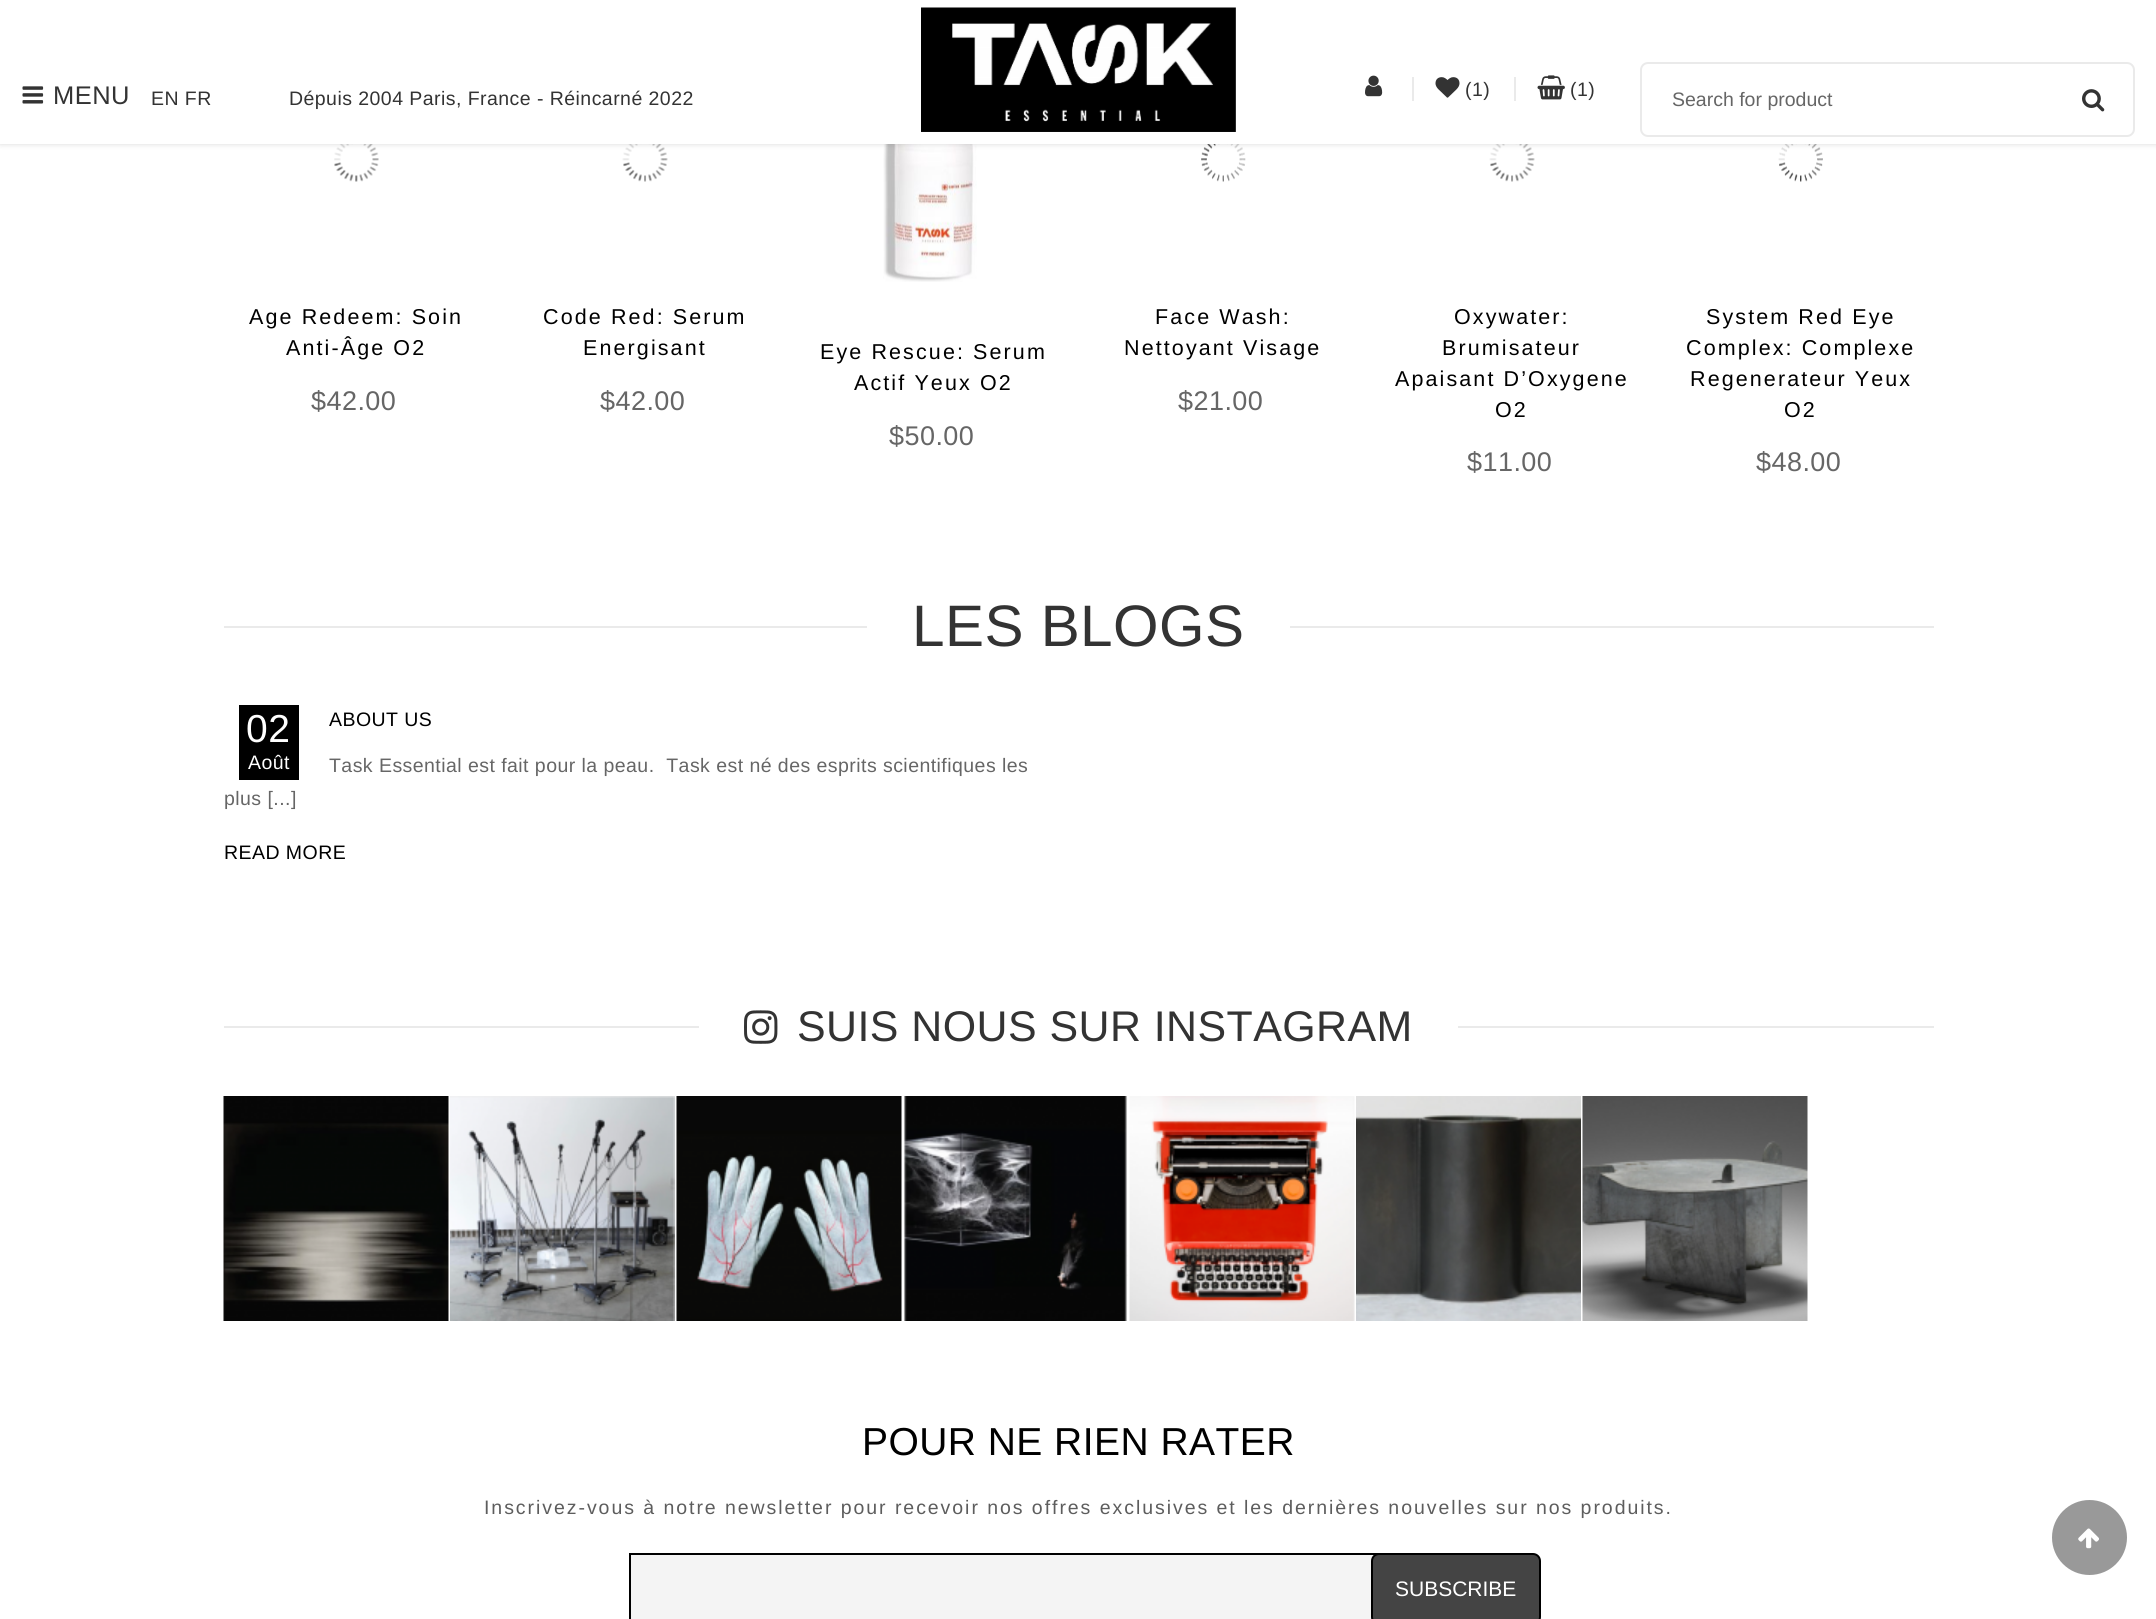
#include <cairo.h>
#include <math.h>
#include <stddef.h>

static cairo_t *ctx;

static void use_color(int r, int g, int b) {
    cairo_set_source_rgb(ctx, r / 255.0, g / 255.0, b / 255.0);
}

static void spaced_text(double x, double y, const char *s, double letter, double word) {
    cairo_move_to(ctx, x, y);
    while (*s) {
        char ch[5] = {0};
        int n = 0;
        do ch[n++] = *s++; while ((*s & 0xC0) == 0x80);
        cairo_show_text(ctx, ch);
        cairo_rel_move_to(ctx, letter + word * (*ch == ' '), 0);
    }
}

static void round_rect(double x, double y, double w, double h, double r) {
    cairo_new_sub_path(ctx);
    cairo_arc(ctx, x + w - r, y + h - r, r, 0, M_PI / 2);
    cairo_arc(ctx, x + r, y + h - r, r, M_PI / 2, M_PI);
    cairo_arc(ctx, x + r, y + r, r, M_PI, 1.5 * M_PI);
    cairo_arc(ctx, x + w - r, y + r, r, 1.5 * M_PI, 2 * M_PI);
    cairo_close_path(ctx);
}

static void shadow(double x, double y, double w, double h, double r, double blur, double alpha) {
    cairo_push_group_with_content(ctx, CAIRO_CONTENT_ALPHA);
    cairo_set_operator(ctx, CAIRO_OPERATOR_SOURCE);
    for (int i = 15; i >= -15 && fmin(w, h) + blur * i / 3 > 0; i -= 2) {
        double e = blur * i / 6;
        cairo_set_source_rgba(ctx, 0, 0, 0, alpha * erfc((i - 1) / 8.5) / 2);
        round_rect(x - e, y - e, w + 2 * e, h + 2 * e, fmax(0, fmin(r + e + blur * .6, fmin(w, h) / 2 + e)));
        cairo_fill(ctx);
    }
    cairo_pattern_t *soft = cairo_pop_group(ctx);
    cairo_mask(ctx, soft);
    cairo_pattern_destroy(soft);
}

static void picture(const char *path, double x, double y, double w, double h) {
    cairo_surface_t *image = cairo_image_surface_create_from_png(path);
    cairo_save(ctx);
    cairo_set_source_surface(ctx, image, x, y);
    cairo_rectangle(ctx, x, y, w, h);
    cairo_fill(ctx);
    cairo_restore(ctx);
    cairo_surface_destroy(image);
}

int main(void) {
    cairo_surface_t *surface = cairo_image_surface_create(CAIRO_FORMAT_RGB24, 2156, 1619);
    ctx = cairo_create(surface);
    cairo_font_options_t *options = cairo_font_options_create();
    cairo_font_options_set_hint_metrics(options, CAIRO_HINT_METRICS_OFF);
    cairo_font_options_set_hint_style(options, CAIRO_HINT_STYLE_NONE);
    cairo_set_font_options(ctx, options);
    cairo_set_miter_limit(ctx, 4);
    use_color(255, 255, 255);
    cairo_paint(ctx);
    picture("img7.png", 334, 144, 45, 38);
    picture("img8.png", 622, 144, 46, 38);
    picture("img9.png", 883, 144, 94, 138);
    picture("img10.png", 1201, 144, 45, 38);
    picture("img8.png", 1489, 144, 46, 38);
    picture("img11.png", 1778, 144, 45, 38);
    use_color(0, 0, 0);
    shadow(0, 0, 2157, 144, 0, 3, 0.15);
    use_color(255, 255, 255);
    cairo_rectangle(ctx, 0, 0, 2156, 144);
    cairo_fill(ctx);
    picture("img1.png", 22, 86, 22, 18);
    cairo_select_font_face(ctx, "Liberation Sans", CAIRO_FONT_SLANT_NORMAL, CAIRO_FONT_WEIGHT_NORMAL);
    cairo_set_font_size(ctx, 25.5);
    use_color(51, 51, 51);
    spaced_text(53, 104, "MENU", 0.45, 0);
    cairo_set_font_size(ctx, 19.5);
    spaced_text(151, 105, "EN FR", 0.45, 0);
    spaced_text(289, 105, "Dépuis 2004 Paris, France - Réincarné 2022", 0.45, 0);
    picture("img2.png", 921, 7, 315, 125);
    picture("img3.png", 1365, 75, 18, 22);
    use_color(234, 234, 234);
    cairo_rectangle(ctx, 1412, 77, 2, 24);
    cairo_fill(ctx);
    picture("img4.png", 1435, 77, 25, 21);
    use_color(51, 51, 51);
    spaced_text(1465, 96, "(1)", 0.45, 0);
    use_color(234, 234, 234);
    cairo_rectangle(ctx, 1514, 77, 2, 24);
    cairo_fill(ctx);
    picture("img5.png", 1537, 75, 28, 25);
    use_color(51, 51, 51);
    spaced_text(1570, 96, "(1)", 0.45, 0);
    round_rect(1641, 63, 493, 73, 7);
    use_color(234, 234, 234);
    cairo_stroke(ctx);
    use_color(102, 102, 102);
    cairo_move_to(ctx, 1672, 106);
    cairo_show_text(ctx, "Search for product");
    picture("img6.png", 2082, 89, 23, 23);
    cairo_set_font_size(ctx, 21.5);
    use_color(0, 0, 0);
    spaced_text(249, 324, "Age Redeem: Soin", 2.1, 0);
    spaced_text(286, 355, "Anti-Âge O2", 2.1, 0);
    cairo_set_font_size(ctx, 27);
    use_color(102, 102, 102);
    spaced_text(311, 410, "$42.00", 0.45, 0);
    cairo_set_font_size(ctx, 21.5);
    use_color(0, 0, 0);
    spaced_text(543, 324, "Code Red: Serum", 2.1, 0);
    spaced_text(583, 355, "Energisant", 2.1, 0);
    cairo_set_font_size(ctx, 27);
    use_color(102, 102, 102);
    spaced_text(600, 410, "$42.00", 0.45, 0);
    cairo_set_font_size(ctx, 21.5);
    use_color(0, 0, 0);
    spaced_text(820, 359, "Eye Rescue: Serum", 2.1, 0);
    spaced_text(854, 390, "Actif Yeux O2", 2.1, 0);
    cairo_set_font_size(ctx, 27);
    use_color(102, 102, 102);
    spaced_text(889, 445, "$50.00", 0.45, 0);
    cairo_set_font_size(ctx, 21.5);
    use_color(0, 0, 0);
    spaced_text(1155, 324, "Face Wash:", 2.1, 0);
    spaced_text(1124, 355, "Nettoyant Visage", 2.1, 0);
    cairo_set_font_size(ctx, 27);
    use_color(102, 102, 102);
    spaced_text(1178, 410, "$21.00", 0.45, 0);
    cairo_set_font_size(ctx, 21.5);
    use_color(0, 0, 0);
    spaced_text(1454, 324, "Oxywater:", 2.1, 0);
    spaced_text(1442, 355, "Brumisateur", 2.1, 0);
    spaced_text(1395, 386, "Apaisant D’Oxygene", 2.1, 0);
    spaced_text(1495, 417, "O2", 2.1, 0);
    cairo_set_font_size(ctx, 27);
    use_color(102, 102, 102);
    spaced_text(1467, 471, "$11.00", 0.45, 0);
    cairo_set_font_size(ctx, 21.5);
    use_color(0, 0, 0);
    spaced_text(1706, 324, "System Red Eye", 2.1, 0);
    spaced_text(1686, 355, "Complex: Complexe", 2.1, 0);
    spaced_text(1690, 386, "Regenerateur Yeux", 2.1, 0);
    spaced_text(1784, 417, "O2", 2.1, 0);
    cairo_set_font_size(ctx, 27);
    use_color(102, 102, 102);
    spaced_text(1756, 471, "$48.00", 0.45, 0);
    use_color(234, 234, 234);
    cairo_rectangle(ctx, 224, 626, 643, 2);
    cairo_fill(ctx);
    cairo_set_font_size(ctx, 58.5);
    use_color(51, 51, 51);
    spaced_text(912, 646, "LES BLOGS", 0.45, 0);
    use_color(234, 234, 234);
    cairo_rectangle(ctx, 1290, 626, 644, 2);
    cairo_fill(ctx);
    use_color(0, 0, 0);
    cairo_rectangle(ctx, 239, 705, 60, 75);
    cairo_fill(ctx);
    cairo_set_font_size(ctx, 39);
    use_color(255, 255, 255);
    spaced_text(246, 742, "02", 0.45, 0);
    cairo_set_font_size(ctx, 19.5);
    spaced_text(248, 769, "Août", 0.45, 0);
    use_color(0, 0, 0);
    spaced_text(329, 726, "ABOUT US", 0.45, 0);
    use_color(102, 102, 102);
    spaced_text(329, 772, "Task Essential est fait pour la peau.  Task est né des esprits scientifiques les", 0.45, 0);
    spaced_text(224, 805, "plus [...]", 0.45, 0);
    use_color(0, 0, 0);
    spaced_text(224, 859, "READ MORE", 0.45, 0);
    picture("img12.png", 744, 1010, 34, 34);
    use_color(234, 234, 234);
    cairo_rectangle(ctx, 224, 1026, 475, 2);
    cairo_fill(ctx);
    cairo_set_font_size(ctx, 42.9);
    use_color(51, 51, 51);
    spaced_text(797, 1041, "SUIS NOUS SUR INSTAGRAM", 0.45, 0);
    use_color(234, 234, 234);
    cairo_rectangle(ctx, 1458, 1026, 476, 2);
    cairo_fill(ctx);
    picture("img13.png", 223, 1096, 226, 225);
    picture("img14.png", 450, 1096, 225, 225);
    picture("img15.png", 676, 1096, 226, 225);
    picture("img16.png", 904, 1096, 224, 225);
    picture("img17.png", 1129, 1096, 226, 225);
    picture("img18.png", 1356, 1096, 225, 225);
    picture("img19.png", 1582, 1096, 226, 225);
    cairo_set_font_size(ctx, 39);
    use_color(0, 0, 0);
    spaced_text(862, 1455, "POUR NE RIEN RATER", 0.45, 0);
    cairo_set_font_size(ctx, 19.5);
    use_color(93, 93, 93);
    spaced_text(484, 1514, "Inscrivez-vous à notre newsletter pour recevoir nos offres exclusives et les dernières nouvelles sur nos produits.", 1.95, 0);
    use_color(244, 244, 244);
    cairo_rectangle(ctx, 631, 1555, 743, 64);
    cairo_fill(ctx);
    cairo_rectangle(ctx, 630, 1554, 748, 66);
    use_color(0, 0, 0);
    cairo_stroke(ctx);
    use_color(68, 68, 68);
    round_rect(1372, 1554, 168, 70, 7);
    cairo_fill_preserve(ctx);
    use_color(0, 0, 0);
    cairo_stroke(ctx);
    cairo_set_font_size(ctx, 21);
    use_color(255, 255, 255);
    cairo_move_to(ctx, 1395, 1596);
    cairo_show_text(ctx, "SUBSCRIBE");
    use_color(153, 153, 153);
    cairo_new_path(ctx);
    cairo_arc(ctx, 2089.5, 1537.5, 37.5, 0, 2 * M_PI);
    cairo_fill(ctx);
    picture("img20.png", 2078, 1528, 21, 21);
    cairo_surface_write_to_png(surface, "result.png");
    cairo_font_options_destroy(options);
    cairo_destroy(ctx);
    cairo_surface_destroy(surface);
    return 0;
}
